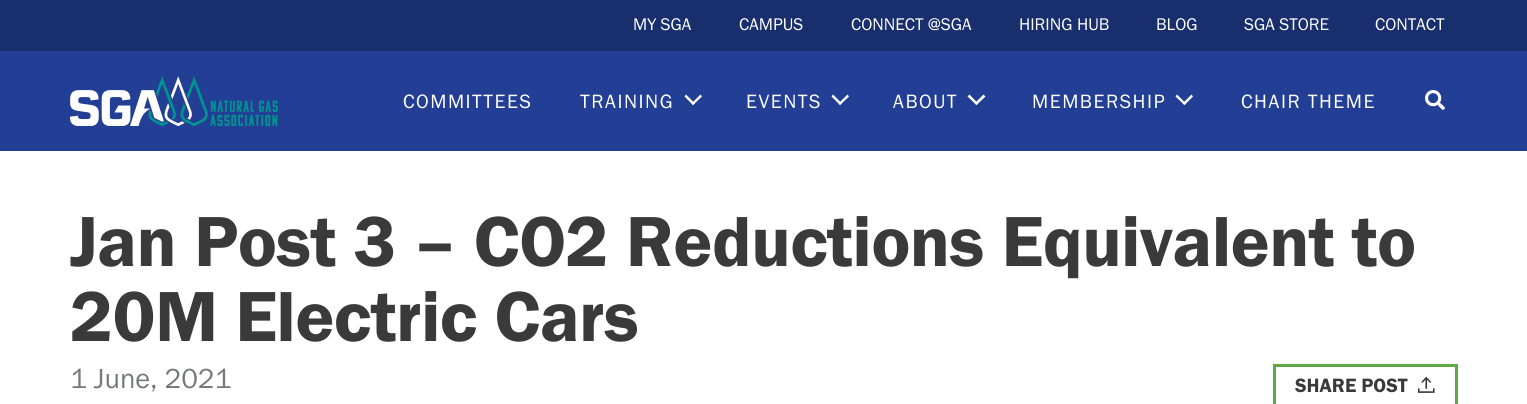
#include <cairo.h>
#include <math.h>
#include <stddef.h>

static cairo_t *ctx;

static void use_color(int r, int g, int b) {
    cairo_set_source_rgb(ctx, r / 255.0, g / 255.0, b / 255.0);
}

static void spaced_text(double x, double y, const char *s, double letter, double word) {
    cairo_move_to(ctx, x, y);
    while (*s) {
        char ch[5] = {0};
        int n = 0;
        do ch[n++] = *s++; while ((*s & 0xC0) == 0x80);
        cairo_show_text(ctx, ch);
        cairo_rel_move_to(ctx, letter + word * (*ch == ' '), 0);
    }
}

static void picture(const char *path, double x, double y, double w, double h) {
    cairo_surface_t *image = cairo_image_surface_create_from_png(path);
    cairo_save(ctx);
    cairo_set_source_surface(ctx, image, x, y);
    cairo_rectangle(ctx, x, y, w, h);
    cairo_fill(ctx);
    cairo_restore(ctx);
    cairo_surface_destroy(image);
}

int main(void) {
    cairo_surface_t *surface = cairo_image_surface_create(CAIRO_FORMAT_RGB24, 1527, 404);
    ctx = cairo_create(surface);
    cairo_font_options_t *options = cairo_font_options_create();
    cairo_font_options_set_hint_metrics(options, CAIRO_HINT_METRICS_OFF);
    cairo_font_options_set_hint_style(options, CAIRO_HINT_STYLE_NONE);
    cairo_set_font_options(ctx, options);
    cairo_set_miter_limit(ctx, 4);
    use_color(255, 255, 255);
    cairo_paint(ctx);
    use_color(25, 46, 108);
    cairo_rectangle(ctx, 0, 0, 1527, 51);
    cairo_fill(ctx);
    cairo_select_font_face(ctx, "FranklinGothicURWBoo", CAIRO_FONT_SLANT_NORMAL, CAIRO_FONT_WEIGHT_NORMAL);
    cairo_set_font_size(ctx, 17.5);
    use_color(255, 255, 255);
    cairo_move_to(ctx, 633, 30);
    cairo_show_text(ctx, "MY SGA");
    cairo_move_to(ctx, 739, 30);
    cairo_show_text(ctx, "CAMPUS");
    cairo_move_to(ctx, 851, 30);
    cairo_show_text(ctx, "CONNECT @SGA");
    cairo_move_to(ctx, 1019, 30);
    cairo_show_text(ctx, "HIRING HUB");
    cairo_move_to(ctx, 1156, 30);
    cairo_show_text(ctx, "BLOG");
    cairo_move_to(ctx, 1244, 30);
    cairo_show_text(ctx, "SGA STORE");
    cairo_move_to(ctx, 1375, 30);
    cairo_show_text(ctx, "CONTACT");
    use_color(35, 63, 149);
    cairo_rectangle(ctx, 0, 51, 1527, 100);
    cairo_fill(ctx);
    picture("img1.png", 70, 76, 208, 50);
    cairo_set_font_size(ctx, 20);
    use_color(255, 255, 255);
    spaced_text(403, 108, "COMMITTEES", 1.5, 0);
    spaced_text(580, 108, "TRAINING", 1.5, 0);
    cairo_new_path(ctx);
    cairo_move_to(ctx, 700.5, 94.5);
    cairo_line_to(ctx, 702, 96.5);
    cairo_line_to(ctx, 693, 105);
    cairo_line_to(ctx, 691.5, 103.5);
    cairo_close_path(ctx);
    cairo_fill(ctx);
    cairo_new_path(ctx);
    cairo_move_to(ctx, 686, 94.5);
    cairo_line_to(ctx, 695, 103.5);
    cairo_line_to(ctx, 693, 105);
    cairo_line_to(ctx, 684.5, 96.5);
    cairo_close_path(ctx);
    cairo_fill(ctx);
    spaced_text(746, 108, "EVENTS", 1.5, 0);
    cairo_new_path(ctx);
    cairo_move_to(ctx, 847.5, 94.5);
    cairo_line_to(ctx, 849, 96.5);
    cairo_line_to(ctx, 840, 105);
    cairo_line_to(ctx, 838.5, 103.5);
    cairo_close_path(ctx);
    cairo_fill(ctx);
    cairo_new_path(ctx);
    cairo_move_to(ctx, 833, 94.5);
    cairo_line_to(ctx, 842, 103.5);
    cairo_line_to(ctx, 840, 105);
    cairo_line_to(ctx, 831.5, 96.5);
    cairo_close_path(ctx);
    cairo_fill(ctx);
    spaced_text(893, 108, "ABOUT", 1.5, 0);
    cairo_new_path(ctx);
    cairo_move_to(ctx, 983.5, 94.5);
    cairo_line_to(ctx, 985.5, 96.5);
    cairo_line_to(ctx, 976.5, 105);
    cairo_line_to(ctx, 974.5, 103.5);
    cairo_close_path(ctx);
    cairo_fill(ctx);
    cairo_new_path(ctx);
    cairo_move_to(ctx, 969.5, 94.5);
    cairo_line_to(ctx, 978, 103.5);
    cairo_line_to(ctx, 976.5, 105);
    cairo_line_to(ctx, 967.5, 96.5);
    cairo_close_path(ctx);
    cairo_fill(ctx);
    spaced_text(1032, 108, "MEMBERSHIP", 1.5, 0);
    cairo_new_path(ctx);
    cairo_move_to(ctx, 1191.5, 94.5);
    cairo_line_to(ctx, 1193, 96.5);
    cairo_line_to(ctx, 1184.5, 105);
    cairo_line_to(ctx, 1182.5, 103.5);
    cairo_close_path(ctx);
    cairo_fill(ctx);
    cairo_new_path(ctx);
    cairo_move_to(ctx, 1177, 94.5);
    cairo_line_to(ctx, 1186, 103.5);
    cairo_line_to(ctx, 1184.5, 105);
    cairo_line_to(ctx, 1175.5, 96.5);
    cairo_close_path(ctx);
    cairo_fill(ctx);
    spaced_text(1241, 108, "CHAIR THEME", 1.5, 0);
    picture("img2.png", 1425, 90, 20, 20);
    cairo_select_font_face(ctx, "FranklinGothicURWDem", CAIRO_FONT_SLANT_NORMAL, CAIRO_FONT_WEIGHT_NORMAL);
    cairo_set_font_size(ctx, 73.4);
    use_color(58, 58, 58);
    spaced_text(70, 266, "Jan Post 3 – CO2 Reductions Equivalent to", -0.6, 0);
    spaced_text(70, 341, "20M Electric Cars", -0.6, 0);
    cairo_select_font_face(ctx, "FranklinGothicURWBoo", CAIRO_FONT_SLANT_NORMAL, CAIRO_FONT_WEIGHT_NORMAL);
    cairo_set_font_size(ctx, 28.5);
    use_color(118, 120, 121);
    cairo_move_to(ctx, 70, 388);
    cairo_show_text(ctx, "1 June, 2021");
    cairo_rectangle(ctx, 1274.5, 365.5, 182, 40);
    use_color(96, 167, 69);
    cairo_set_line_width(ctx, 3);
    cairo_stroke(ctx);
    cairo_select_font_face(ctx, "FranklinGothicURWDem", CAIRO_FONT_SLANT_NORMAL, CAIRO_FONT_WEIGHT_NORMAL);
    cairo_set_font_size(ctx, 20);
    use_color(58, 58, 58);
    cairo_move_to(ctx, 1295, 392);
    cairo_show_text(ctx, "SHARE POST");
    picture("img3.png", 1418, 376, 17, 17);
    cairo_surface_write_to_png(surface, "result.png");
    cairo_font_options_destroy(options);
    cairo_destroy(ctx);
    cairo_surface_destroy(surface);
    return 0;
}
